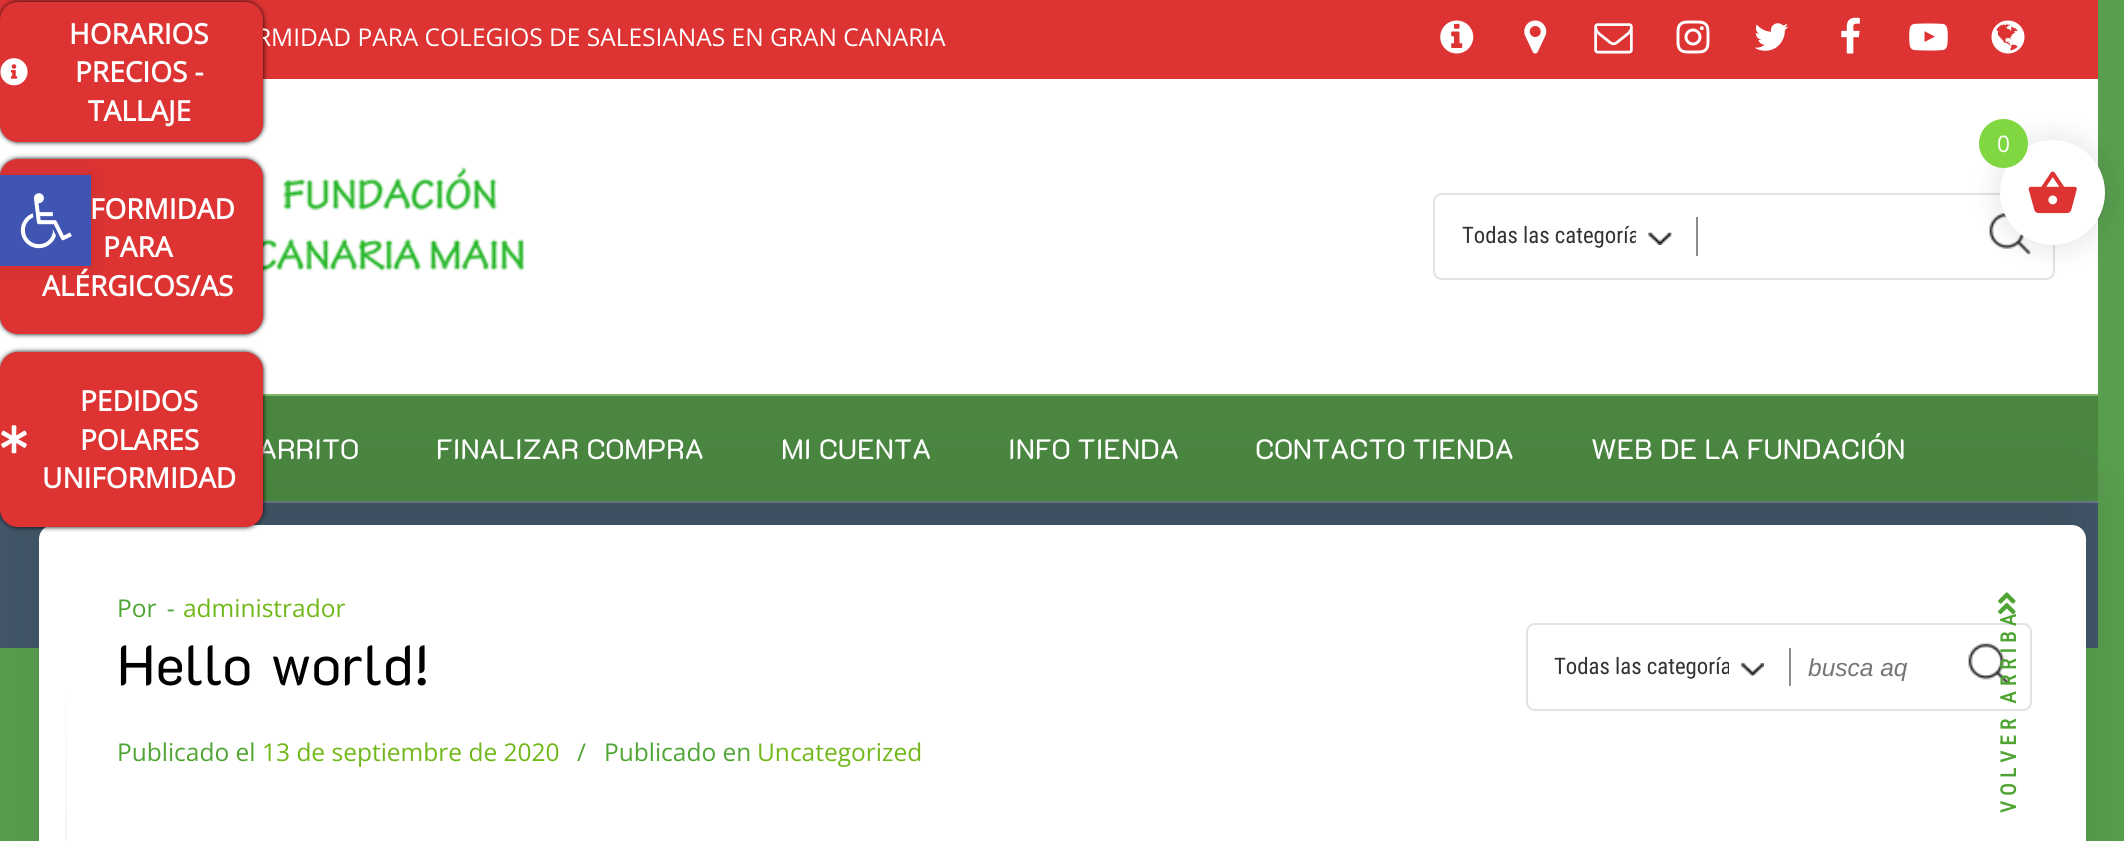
#include <cairo.h>
#include <math.h>
#include <stddef.h>

static cairo_t *ctx;

static void use_color(int r, int g, int b) {
    cairo_set_source_rgb(ctx, r / 255.0, g / 255.0, b / 255.0);
}

static void spaced_text(double x, double y, const char *s, double letter, double word) {
    cairo_move_to(ctx, x, y);
    while (*s) {
        char ch[5] = {0};
        int n = 0;
        do ch[n++] = *s++; while ((*s & 0xC0) == 0x80);
        cairo_show_text(ctx, ch);
        cairo_rel_move_to(ctx, letter + word * (*ch == ' '), 0);
    }
}

static void round_rect(double x, double y, double w, double h, double r) {
    cairo_new_sub_path(ctx);
    cairo_arc(ctx, x + w - r, y + h - r, r, 0, M_PI / 2);
    cairo_arc(ctx, x + r, y + h - r, r, M_PI / 2, M_PI);
    cairo_arc(ctx, x + r, y + r, r, M_PI, 1.5 * M_PI);
    cairo_arc(ctx, x + w - r, y + r, r, 1.5 * M_PI, 2 * M_PI);
    cairo_close_path(ctx);
}

static void shadow(double x, double y, double w, double h, double r, double blur, double alpha) {
    cairo_push_group_with_content(ctx, CAIRO_CONTENT_ALPHA);
    cairo_set_operator(ctx, CAIRO_OPERATOR_SOURCE);
    for (int i = 15; i >= -15 && fmin(w, h) + blur * i / 3 > 0; i -= 2) {
        double e = blur * i / 6;
        cairo_set_source_rgba(ctx, 0, 0, 0, alpha * erfc((i - 1) / 8.5) / 2);
        round_rect(x - e, y - e, w + 2 * e, h + 2 * e, fmax(0, fmin(r + e + blur * .6, fmin(w, h) / 2 + e)));
        cairo_fill(ctx);
    }
    cairo_pattern_t *soft = cairo_pop_group(ctx);
    cairo_mask(ctx, soft);
    cairo_pattern_destroy(soft);
}

static void picture(const char *path, double x, double y, double w, double h) {
    cairo_surface_t *image = cairo_image_surface_create_from_png(path);
    cairo_save(ctx);
    cairo_set_source_surface(ctx, image, x, y);
    cairo_rectangle(ctx, x, y, w, h);
    cairo_fill(ctx);
    cairo_restore(ctx);
    cairo_surface_destroy(image);
}

int main(void) {
    cairo_surface_t *surface = cairo_image_surface_create(CAIRO_FORMAT_RGB24, 2124, 841);
    ctx = cairo_create(surface);
    cairo_font_options_t *options = cairo_font_options_create();
    cairo_font_options_set_hint_metrics(options, CAIRO_HINT_METRICS_OFF);
    cairo_font_options_set_hint_style(options, CAIRO_HINT_STYLE_NONE);
    cairo_set_font_options(ctx, options);
    cairo_set_miter_limit(ctx, 4);
    cairo_pattern_t *gradient;
    use_color(89, 158, 79);
    cairo_paint(ctx);
    use_color(221, 51, 51);
    cairo_rectangle(ctx, 0, 0, 2098, 79);
    cairo_fill(ctx);
    use_color(255, 255, 255);
    cairo_rectangle(ctx, 0, 79, 2098, 317);
    cairo_fill(ctx);
    use_color(2, 2, 2);
    shadow(0, 2, 263, 140, 18, 2.5, 1);
    cairo_select_font_face(ctx, "Open Sans", CAIRO_FONT_SLANT_NORMAL, CAIRO_FONT_WEIGHT_NORMAL);
    cairo_set_font_size(ctx, 24.5);
    use_color(255, 255, 255);
    cairo_move_to(ctx, 256, 46);
    cairo_show_text(ctx, "RMIDAD PARA COLEGIOS DE SALESIANAS EN GRAN CANARIA");
    use_color(221, 51, 51);
    round_rect(0, 2, 263, 140, 18);
    cairo_fill(ctx);
    cairo_select_font_face(ctx, "Open Sans", CAIRO_FONT_SLANT_NORMAL, CAIRO_FONT_WEIGHT_BOLD);
    cairo_set_font_size(ctx, 28);
    use_color(255, 255, 255);
    cairo_move_to(ctx, 69, 44);
    cairo_show_text(ctx, "HORARIOS");
    picture("img1.png", 0, 58, 28, 28);
    cairo_move_to(ctx, 75, 82);
    cairo_show_text(ctx, "PRECIOS -");
    cairo_move_to(ctx, 88, 121);
    cairo_show_text(ctx, "TALLAJE");
    picture("img2.png", 1440, 20, 34, 34);
    picture("img3.png", 1524, 20, 23, 34);
    picture("img4.png", 1594, 23, 39, 31);
    picture("img5.png", 1676, 20, 34, 34);
    picture("img6.png", 1754, 23, 35, 28);
    picture("img7.png", 1841, 17, 19, 37);
    picture("img8.png", 1909, 23, 39, 28);
    picture("img9.png", 1991, 20, 34, 34);
    picture("img10.png", 259, 166, 266, 111);
    round_rect(1434, 194, 620, 85, 8);
    use_color(226, 225, 230);
    cairo_stroke(ctx);
    picture("img11.png", 1648, 232, 24, 13);
    cairo_save(ctx);
    cairo_rectangle(ctx, 1461, 194, 175, 84);
    cairo_clip(ctx);
    cairo_select_font_face(ctx, "Roboto Condensed", CAIRO_FONT_SLANT_NORMAL, CAIRO_FONT_WEIGHT_NORMAL);
    cairo_set_font_size(ctx, 22.75);
    use_color(51, 51, 51);
    cairo_move_to(ctx, 1462, 243);
    cairo_show_text(ctx, "Todas las categoría");
    cairo_restore(ctx);
    use_color(142, 139, 140);
    cairo_rectangle(ctx, 1696, 217, 2, 39);
    cairo_fill(ctx);
    picture("img12.png", 1989, 213, 42, 42);
    use_color(66, 87, 105);
    cairo_rectangle(ctx, 0, 396, 2098, 252);
    cairo_fill(ctx);
    use_color(0, 0, 0);
    shadow(25, 464, 2075, 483, 28, 26, 0.08);
    cairo_set_source_rgba(ctx, 0.306, 0.608, 0.188, 0.7);
    cairo_rectangle(ctx, 263, 394, 1835, 107);
    cairo_fill(ctx);
    cairo_select_font_face(ctx, "K2D", CAIRO_FONT_SLANT_NORMAL, CAIRO_FONT_WEIGHT_NORMAL);
    use_color(255, 255, 255);
    cairo_move_to(ctx, 258, 459);
    cairo_show_text(ctx, "ARRITO");
    cairo_move_to(ctx, 436, 459);
    cairo_show_text(ctx, "FINALIZAR COMPRA");
    cairo_move_to(ctx, 781, 459);
    cairo_show_text(ctx, "MI CUENTA");
    cairo_move_to(ctx, 1008, 459);
    cairo_show_text(ctx, "INFO TIENDA");
    cairo_move_to(ctx, 1255, 459);
    cairo_show_text(ctx, "CONTACTO TIENDA");
    cairo_move_to(ctx, 1591, 459);
    cairo_show_text(ctx, "WEB DE LA FUNDACIÓN");
    cairo_set_source_rgba(ctx, 1, 1, 1, 0.2);
    cairo_rectangle(ctx, 263, 501, 1835, 2);
    cairo_fill(ctx);
    use_color(0, 0, 0);
    shadow(1997, 137, 112, 112, 56, 13, 0.1);
    use_color(255, 255, 255);
    cairo_arc(ctx, 2052.5, 192.5, 52.5, 0, 2 * M_PI);
    cairo_fill(ctx);
    use_color(129, 215, 66);
    cairo_arc(ctx, 2003.5, 143.5, 24.5, 0, 2 * M_PI);
    cairo_fill(ctx);
    cairo_select_font_face(ctx, "Open Sans", CAIRO_FONT_SLANT_NORMAL, CAIRO_FONT_WEIGHT_NORMAL);
    cairo_set_font_size(ctx, 22.75);
    use_color(255, 255, 255);
    cairo_move_to(ctx, 1997, 152);
    cairo_show_text(ctx, "0");
    picture("img13.png", 2028, 171, 49, 43);
    use_color(2, 2, 2);
    shadow(0, 159, 263, 175, 18, 2.5, 1);
    use_color(221, 51, 51);
    round_rect(0, 159, 263, 175, 18);
    cairo_fill(ctx);
    use_color(0, 0, 0);
    shadow(0, 175, 91, 91, 0, 9, 0.1);
    use_color(64, 84, 178);
    cairo_rectangle(ctx, 0, 175, 91, 91);
    cairo_fill(ctx);
    picture("img14.png", 20, 193, 52, 56);
    cairo_select_font_face(ctx, "Open Sans", CAIRO_FONT_SLANT_NORMAL, CAIRO_FONT_WEIGHT_BOLD);
    cairo_set_font_size(ctx, 28);
    use_color(255, 255, 255);
    cairo_move_to(ctx, 90, 219);
    cairo_show_text(ctx, "FORMIDAD");
    cairo_move_to(ctx, 103, 257);
    cairo_show_text(ctx, "PARA");
    cairo_move_to(ctx, 42, 296);
    cairo_show_text(ctx, "ALÉRGICOS/AS");
    round_rect(39, 525, 2047, 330, 14);
    cairo_fill(ctx);
    use_color(2, 2, 2);
    shadow(0, 352, 263, 175, 18, 2.5, 1);
    use_color(221, 51, 51);
    round_rect(0, 352, 263, 175, 18);
    cairo_fill(ctx);
    use_color(255, 255, 255);
    cairo_move_to(ctx, 80, 411);
    cairo_show_text(ctx, "PEDIDOS");
    picture("img15.png", 1, 425, 26, 29);
    cairo_move_to(ctx, 80, 450);
    cairo_show_text(ctx, "POLARES");
    cairo_move_to(ctx, 42, 488);
    cairo_show_text(ctx, "UNIFORMIDAD");
    gradient = cairo_pattern_create_radial(0, 0, 0, 0, 0, 1);
    cairo_pattern_set_matrix(gradient, &(cairo_matrix_t){1.0 / 1.2, 0, 0, 1.0 / 723, -1.0 * 66 / 1.2, -1.0 * 1062 / 723});
    cairo_pattern_add_color_stop_rgba(gradient, 0, 0.839, 0.855, 0.886, 1);
    cairo_pattern_add_color_stop_rgba(gradient, 0.7, 1, 1, 1, 1);
    cairo_set_source(ctx, gradient);
    cairo_pattern_destroy(gradient);
    cairo_rectangle(ctx, 65, 694, 2, 147);
    cairo_fill(ctx);
    cairo_select_font_face(ctx, "Open Sans", CAIRO_FONT_SLANT_NORMAL, CAIRO_FONT_WEIGHT_NORMAL);
    cairo_set_font_size(ctx, 24.5);
    use_color(79, 165, 51);
    spaced_text(117, 617, "Por -", 0, 4);
    use_color(112, 183, 25);
    cairo_move_to(ctx, 183, 617);
    cairo_show_text(ctx, "administrador");
    cairo_select_font_face(ctx, "K2D", CAIRO_FONT_SLANT_NORMAL, CAIRO_FONT_WEIGHT_NORMAL);
    cairo_set_font_size(ctx, 56);
    use_color(0, 0, 0);
    spaced_text(117, 685, "Hello world!", 0, 4);
    cairo_select_font_face(ctx, "Open Sans", CAIRO_FONT_SLANT_NORMAL, CAIRO_FONT_WEIGHT_NORMAL);
    cairo_set_font_size(ctx, 24.5);
    use_color(79, 165, 51);
    cairo_move_to(ctx, 117, 761);
    cairo_show_text(ctx, "Publicado el");
    use_color(112, 183, 25);
    cairo_move_to(ctx, 262, 761);
    cairo_show_text(ctx, "13 de septiembre de 2020");
    use_color(79, 165, 51);
    cairo_move_to(ctx, 577, 761);
    cairo_show_text(ctx, "/");
    cairo_move_to(ctx, 604, 761);
    cairo_show_text(ctx, "Publicado en");
    use_color(112, 183, 25);
    cairo_move_to(ctx, 757, 761);
    cairo_show_text(ctx, "Uncategorized");
    round_rect(1527, 624, 504, 86, 8);
    use_color(226, 225, 230);
    cairo_stroke(ctx);
    picture("img16.png", 1741, 663, 23, 13);
    cairo_save(ctx);
    cairo_rectangle(ctx, 1554, 625, 175, 84);
    cairo_clip(ctx);
    cairo_select_font_face(ctx, "Roboto Condensed", CAIRO_FONT_SLANT_NORMAL, CAIRO_FONT_WEIGHT_NORMAL);
    cairo_set_font_size(ctx, 22.75);
    use_color(51, 51, 51);
    cairo_move_to(ctx, 1554, 674);
    cairo_show_text(ctx, "Todas las categoría");
    cairo_restore(ctx);
    use_color(142, 139, 140);
    cairo_rectangle(ctx, 1789, 648, 2, 38);
    cairo_fill(ctx);
    cairo_select_font_face(ctx, "Liberation Sans", CAIRO_FONT_SLANT_ITALIC, CAIRO_FONT_WEIGHT_NORMAL);
    use_color(117, 117, 117);
    cairo_move_to(ctx, 1808, 676);
    cairo_show_text(ctx, "busca aq");
    picture("img17.png", 1968, 643, 42, 42);
    cairo_select_font_face(ctx, "Roboto Condensed", CAIRO_FONT_SLANT_NORMAL, CAIRO_FONT_WEIGHT_BOLD);
    cairo_set_font_size(ctx, 21);
    use_color(79, 165, 51);
    cairo_save(ctx);
    cairo_translate(ctx, 2016, 813);
    cairo_rotate(ctx, -90 * M_PI / 180);
    spaced_text(0, 0, "VOLVER ARRIBA", 5.25, 0);
    cairo_restore(ctx);
    picture("img18.png", 1998, 592, 18, 23);
    cairo_surface_write_to_png(surface, "result.png");
    cairo_font_options_destroy(options);
    cairo_destroy(ctx);
    cairo_surface_destroy(surface);
    return 0;
}
